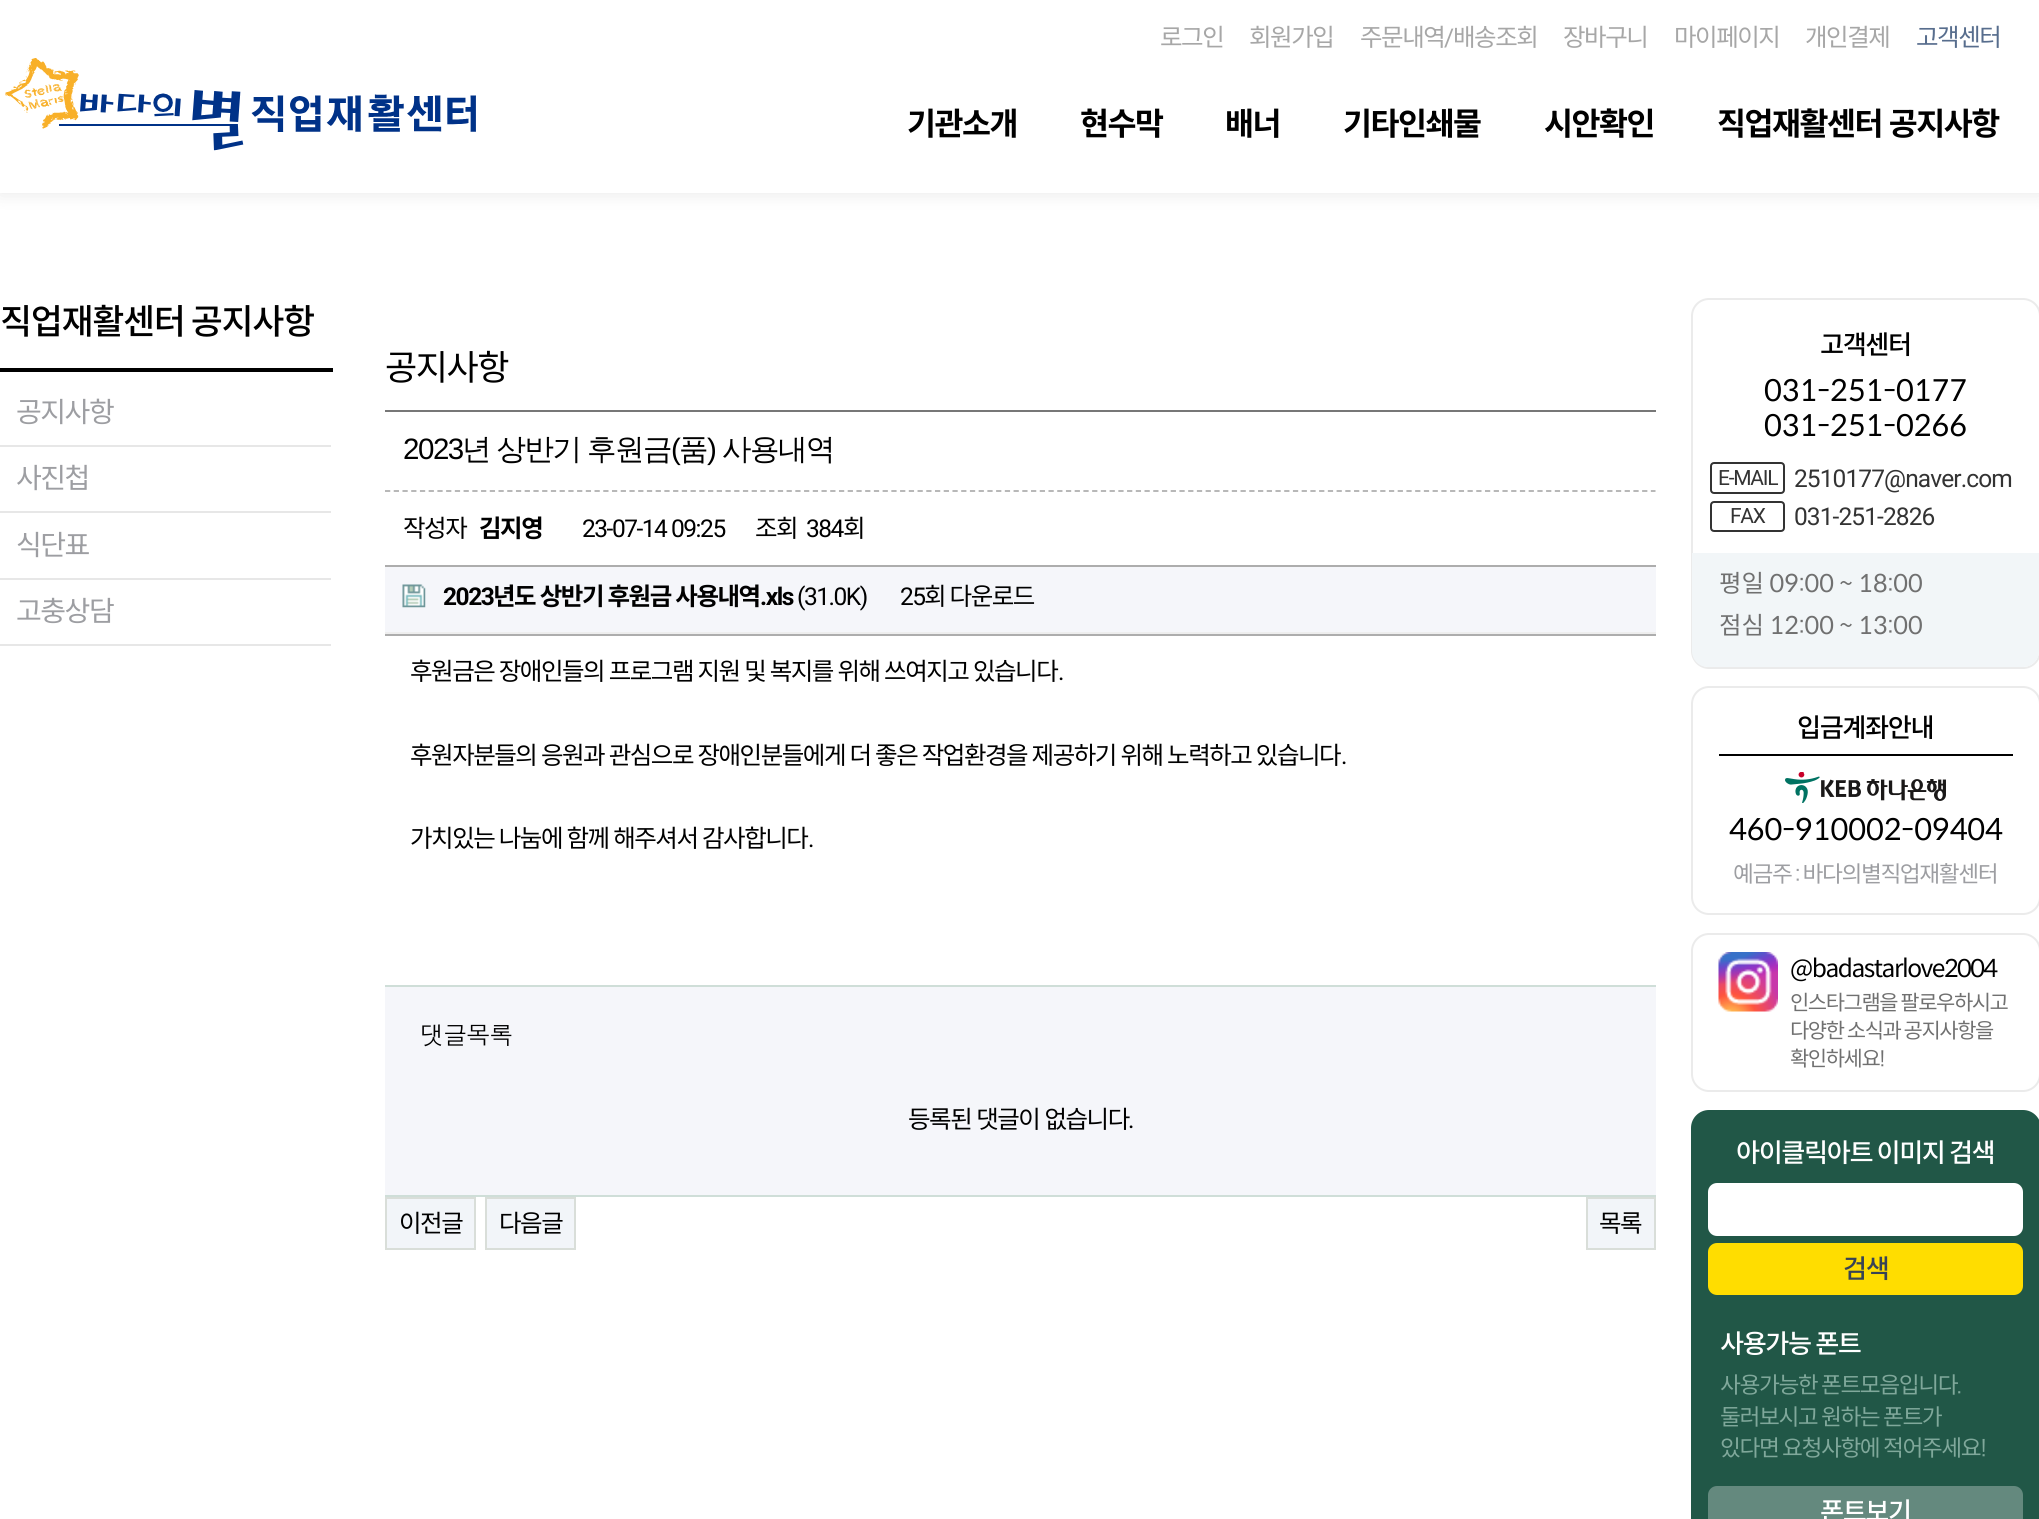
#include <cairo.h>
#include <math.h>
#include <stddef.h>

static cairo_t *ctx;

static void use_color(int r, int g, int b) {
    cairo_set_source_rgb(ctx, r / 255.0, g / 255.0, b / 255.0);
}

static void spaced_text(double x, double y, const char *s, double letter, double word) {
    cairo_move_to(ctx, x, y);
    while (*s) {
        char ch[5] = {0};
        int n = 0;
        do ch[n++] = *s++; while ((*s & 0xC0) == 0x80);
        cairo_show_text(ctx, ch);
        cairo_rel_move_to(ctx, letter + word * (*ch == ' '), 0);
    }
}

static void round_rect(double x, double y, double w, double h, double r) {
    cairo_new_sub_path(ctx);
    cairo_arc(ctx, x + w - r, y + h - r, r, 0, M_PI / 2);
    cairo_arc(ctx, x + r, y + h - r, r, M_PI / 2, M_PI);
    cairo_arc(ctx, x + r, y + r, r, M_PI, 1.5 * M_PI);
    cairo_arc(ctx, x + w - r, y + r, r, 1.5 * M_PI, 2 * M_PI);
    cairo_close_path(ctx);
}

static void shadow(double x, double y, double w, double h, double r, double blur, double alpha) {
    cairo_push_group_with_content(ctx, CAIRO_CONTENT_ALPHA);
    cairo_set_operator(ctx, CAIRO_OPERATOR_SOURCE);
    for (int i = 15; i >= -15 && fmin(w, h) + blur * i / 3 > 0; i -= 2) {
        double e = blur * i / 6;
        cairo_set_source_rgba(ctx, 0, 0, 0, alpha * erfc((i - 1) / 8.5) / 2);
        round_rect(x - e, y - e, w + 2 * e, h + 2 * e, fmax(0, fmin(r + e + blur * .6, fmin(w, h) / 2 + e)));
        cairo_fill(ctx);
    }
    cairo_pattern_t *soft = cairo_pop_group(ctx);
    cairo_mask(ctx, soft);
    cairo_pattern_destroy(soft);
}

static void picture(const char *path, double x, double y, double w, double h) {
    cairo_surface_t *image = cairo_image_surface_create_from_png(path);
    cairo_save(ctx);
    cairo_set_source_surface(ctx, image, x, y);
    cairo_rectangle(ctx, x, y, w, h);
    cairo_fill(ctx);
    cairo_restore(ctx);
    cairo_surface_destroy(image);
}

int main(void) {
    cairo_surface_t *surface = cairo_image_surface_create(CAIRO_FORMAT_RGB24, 2039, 1519);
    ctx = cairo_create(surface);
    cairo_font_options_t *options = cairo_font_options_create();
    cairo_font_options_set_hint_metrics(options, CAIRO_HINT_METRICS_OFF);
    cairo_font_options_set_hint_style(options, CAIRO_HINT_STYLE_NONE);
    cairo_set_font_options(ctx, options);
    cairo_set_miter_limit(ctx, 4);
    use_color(255, 255, 255);
    cairo_paint(ctx);
    cairo_save(ctx);
    cairo_set_fill_rule(ctx, CAIRO_FILL_RULE_EVEN_ODD);
    cairo_new_path(ctx);
    cairo_move_to(ctx, 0, 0);
    cairo_line_to(ctx, 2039, 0);
    cairo_line_to(ctx, 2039, 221);
    cairo_line_to(ctx, 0, 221);
    cairo_close_path(ctx);
    cairo_move_to(ctx, 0, 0);
    cairo_line_to(ctx, 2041, 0);
    cairo_line_to(ctx, 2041, 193);
    cairo_line_to(ctx, 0, 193);
    cairo_close_path(ctx);
    cairo_clip(ctx);
    use_color(0, 0, 0);
    shadow(0, 0, 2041, 193, 0, 9, 0.1);
    cairo_restore(ctx);
    cairo_select_font_face(ctx, "Noto Sans KR", CAIRO_FONT_SLANT_NORMAL, CAIRO_FONT_WEIGHT_NORMAL);
    cairo_set_font_size(ctx, 24.5);
    use_color(167, 167, 167);
    spaced_text(1160, 46, "로그인", -1.47, 0);
    spaced_text(1249, 46, "회원가입", -1.47, 0);
    spaced_text(1360, 46, "주문내역", -1.47, 0);
    cairo_select_font_face(ctx, "Roboto", CAIRO_FONT_SLANT_NORMAL, CAIRO_FONT_WEIGHT_NORMAL);
    spaced_text(1444, 46, "/", -1.47, 0);
    cairo_select_font_face(ctx, "Noto Sans KR", CAIRO_FONT_SLANT_NORMAL, CAIRO_FONT_WEIGHT_NORMAL);
    spaced_text(1453, 46, "배송조회", -1.47, 0);
    spaced_text(1563, 46, "장바구니", -1.47, 0);
    spaced_text(1674, 46, "마이페이지", -1.47, 0);
    spaced_text(1805, 46, "개인결제", -1.47, 0);
    use_color(87, 109, 141);
    spaced_text(1916, 46, "고객센터", -1.47, 0);
    picture("img1.png", 5, 58, 471, 93);
    cairo_select_font_face(ctx, "Noto Sans KR", CAIRO_FONT_SLANT_NORMAL, CAIRO_FONT_WEIGHT_BOLD);
    cairo_set_font_size(ctx, 31.5);
    use_color(0, 0, 0);
    spaced_text(907, 135, "기관소개", -1.47, 0);
    spaced_text(1080, 135, "현수막", -1.47, 0);
    spaced_text(1225, 135, "배너", -1.47, 0);
    spaced_text(1343, 135, "기타인쇄물", -1.47, 0);
    spaced_text(1544, 135, "시안확인", -1.47, 0);
    spaced_text(1717, 135, "직업재활센터 공지사항", -1.47, 1);
    cairo_select_font_face(ctx, "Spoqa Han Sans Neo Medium", CAIRO_FONT_SLANT_NORMAL, CAIRO_FONT_WEIGHT_NORMAL);
    cairo_set_font_size(ctx, 35);
    spaced_text(0, 334, "직업재활센터 공지사항", -1.47, 0);
    cairo_rectangle(ctx, 0, 368, 333, 4);
    cairo_fill(ctx);
    use_color(231, 231, 231);
    cairo_rectangle(ctx, 0, 445, 331, 2);
    cairo_fill(ctx);
    cairo_select_font_face(ctx, "Noto Sans KR", CAIRO_FONT_SLANT_NORMAL, CAIRO_FONT_WEIGHT_NORMAL);
    cairo_set_font_size(ctx, 28);
    use_color(157, 158, 162);
    spaced_text(16, 422, "공지사항", -1.47, 0);
    use_color(231, 231, 231);
    cairo_rectangle(ctx, 0, 511, 331, 2);
    cairo_fill(ctx);
    use_color(157, 158, 162);
    spaced_text(16, 488, "사진첩", -1.47, 0);
    use_color(231, 231, 231);
    cairo_rectangle(ctx, 0, 578, 331, 2);
    cairo_fill(ctx);
    use_color(157, 158, 162);
    spaced_text(16, 555, "식단표", -1.47, 0);
    use_color(231, 231, 231);
    cairo_rectangle(ctx, 0, 644, 331, 2);
    cairo_fill(ctx);
    use_color(157, 158, 162);
    spaced_text(16, 621, "고충상담", -1.47, 0);
    cairo_set_font_size(ctx, 35);
    use_color(0, 0, 0);
    spaced_text(385, 380, "공지사항", -1.47, 0);
    use_color(119, 119, 119);
    cairo_rectangle(ctx, 385, 410, 1271, 2);
    cairo_fill(ctx);
    cairo_new_path(ctx);
    cairo_move_to(ctx, 385, 491);
    cairo_line_to(ctx, 1655.5, 491);
    use_color(176, 176, 176);
    cairo_set_line_width(ctx, 1.8);
    cairo_set_dash(ctx, (double[]){5.25, 3.48}, 2, 0);
    cairo_stroke(ctx);
    cairo_select_font_face(ctx, "Liberation Sans", CAIRO_FONT_SLANT_NORMAL, CAIRO_FONT_WEIGHT_NORMAL);
    cairo_set_font_size(ctx, 29.5);
    use_color(0, 0, 0);
    spaced_text(403, 459, "2023", -1.47, 0);
    cairo_select_font_face(ctx, "WenQuanYi Zen Hei Medium", CAIRO_FONT_SLANT_NORMAL, CAIRO_FONT_WEIGHT_NORMAL);
    spaced_text(462, 459, "년 상반기 후원금", -1.47, -1);
    cairo_select_font_face(ctx, "Liberation Sans", CAIRO_FONT_SLANT_NORMAL, CAIRO_FONT_WEIGHT_NORMAL);
    spaced_text(671, 459, "(", -1.47, 0);
    cairo_select_font_face(ctx, "WenQuanYi Zen Hei Medium", CAIRO_FONT_SLANT_NORMAL, CAIRO_FONT_WEIGHT_NORMAL);
    spaced_text(679, 459, "품", -1.47, 0);
    cairo_select_font_face(ctx, "Liberation Sans", CAIRO_FONT_SLANT_NORMAL, CAIRO_FONT_WEIGHT_NORMAL);
    spaced_text(707, 459, ")", -1.47, 0);
    cairo_select_font_face(ctx, "WenQuanYi Zen Hei Medium", CAIRO_FONT_SLANT_NORMAL, CAIRO_FONT_WEIGHT_NORMAL);
    spaced_text(722, 459, "사용내역", -1.47, 0);
    use_color(173, 173, 173);
    cairo_rectangle(ctx, 385, 565, 1271, 2);
    cairo_fill(ctx);
    cairo_select_font_face(ctx, "Noto Sans KR", CAIRO_FONT_SLANT_NORMAL, CAIRO_FONT_WEIGHT_NORMAL);
    cairo_set_font_size(ctx, 24.5);
    use_color(0, 0, 0);
    spaced_text(403, 537, "작성자", -1.47, 0);
    cairo_select_font_face(ctx, "Noto Sans KR", CAIRO_FONT_SLANT_NORMAL, CAIRO_FONT_WEIGHT_BOLD);
    spaced_text(479, 537, "김지영", -1.47, 0);
    cairo_select_font_face(ctx, "Roboto", CAIRO_FONT_SLANT_NORMAL, CAIRO_FONT_WEIGHT_NORMAL);
    spaced_text(582, 537, "23-07-14 09:25", -1.47, 0);
    cairo_select_font_face(ctx, "Noto Sans KR", CAIRO_FONT_SLANT_NORMAL, CAIRO_FONT_WEIGHT_NORMAL);
    spaced_text(755, 537, "조회", -1.47, 0);
    cairo_select_font_face(ctx, "Roboto", CAIRO_FONT_SLANT_NORMAL, CAIRO_FONT_WEIGHT_NORMAL);
    spaced_text(806, 537, "384", -1.47, 0);
    cairo_select_font_face(ctx, "Noto Sans KR", CAIRO_FONT_SLANT_NORMAL, CAIRO_FONT_WEIGHT_NORMAL);
    spaced_text(843, 537, "회", -1.47, 0);
    use_color(173, 173, 173);
    cairo_rectangle(ctx, 385, 634, 1271, 2);
    cairo_fill(ctx);
    use_color(245, 246, 250);
    cairo_rectangle(ctx, 385, 567, 1271, 65);
    cairo_fill(ctx);
    use_color(238, 238, 238);
    cairo_rectangle(ctx, 385, 632, 1271, 2);
    cairo_fill(ctx);
    picture("img2.png", 402, 584, 24, 24);
    cairo_select_font_face(ctx, "Roboto", CAIRO_FONT_SLANT_NORMAL, CAIRO_FONT_WEIGHT_BOLD);
    use_color(0, 0, 0);
    spaced_text(443, 605, "2023", -1.47, 0);
    cairo_select_font_face(ctx, "Noto Sans KR", CAIRO_FONT_SLANT_NORMAL, CAIRO_FONT_WEIGHT_BOLD);
    spaced_text(493, 605, "년도 상반기 후원금 사용내역", -1.47, 0.5);
    cairo_select_font_face(ctx, "Roboto", CAIRO_FONT_SLANT_NORMAL, CAIRO_FONT_WEIGHT_BOLD);
    spaced_text(760, 605, ".xls", -1.47, 0);
    cairo_select_font_face(ctx, "Roboto", CAIRO_FONT_SLANT_NORMAL, CAIRO_FONT_WEIGHT_NORMAL);
    spaced_text(797, 605, "(31.0K)", -1.47, 0);
    spaced_text(900, 605, "25", -1.47, 0);
    cairo_select_font_face(ctx, "Noto Sans KR", CAIRO_FONT_SLANT_NORMAL, CAIRO_FONT_WEIGHT_NORMAL);
    spaced_text(924, 605, "회 다운로드", -1.47, 0.5);
    spaced_text(410, 680, "후원금은 장애인들의 프로그램 지원 및 복지를 위해 쓰여지고 있습니다", -1.47, 0.5);
    cairo_select_font_face(ctx, "Roboto", CAIRO_FONT_SLANT_NORMAL, CAIRO_FONT_WEIGHT_NORMAL);
    spaced_text(1058, 680, ".", -1.47, 0);
    cairo_select_font_face(ctx, "Noto Sans KR", CAIRO_FONT_SLANT_NORMAL, CAIRO_FONT_WEIGHT_NORMAL);
    spaced_text(410, 764, "후원자분들의 응원과 관심으로 장애인분들에게 더 좋은 작업환경을 제공하기 위해 노력하고 있습니다", -1.47, 0.5);
    cairo_select_font_face(ctx, "Roboto", CAIRO_FONT_SLANT_NORMAL, CAIRO_FONT_WEIGHT_NORMAL);
    spaced_text(1341, 764, ".", -1.47, 0);
    cairo_select_font_face(ctx, "Noto Sans KR", CAIRO_FONT_SLANT_NORMAL, CAIRO_FONT_WEIGHT_NORMAL);
    spaced_text(410, 847, "가치있는 나눔에 함께 해주셔서 감사합니다", -1.47, 0.5);
    cairo_select_font_face(ctx, "Roboto", CAIRO_FONT_SLANT_NORMAL, CAIRO_FONT_WEIGHT_NORMAL);
    spaced_text(808, 847, ".", -1.47, 0);
    use_color(245, 246, 250);
    cairo_rectangle(ctx, 385, 987, 1271, 208);
    cairo_fill(ctx);
    use_color(207, 222, 216);
    cairo_rectangle(ctx, 385, 985, 1271, 2);
    cairo_fill(ctx);
    cairo_rectangle(ctx, 385, 1195, 1271, 2);
    cairo_fill(ctx);
    cairo_select_font_face(ctx, "Dotum", CAIRO_FONT_SLANT_NORMAL, CAIRO_FONT_WEIGHT_NORMAL);
    use_color(0, 0, 0);
    spaced_text(420, 1044, "댓글목록", -1.47, 0);
    cairo_select_font_face(ctx, "Noto Sans KR", CAIRO_FONT_SLANT_NORMAL, CAIRO_FONT_WEIGHT_NORMAL);
    spaced_text(908, 1128, "등록된 댓글이 없습니다", -1.47, 1);
    cairo_select_font_face(ctx, "Roboto", CAIRO_FONT_SLANT_NORMAL, CAIRO_FONT_WEIGHT_NORMAL);
    spaced_text(1128, 1128, ".", -1.47, 0);
    use_color(242, 245, 249);
    cairo_rectangle(ctx, 386, 1198, 89, 51);
    cairo_fill_preserve(ctx);
    use_color(217, 222, 217);
    cairo_set_line_width(ctx, 2);
    cairo_set_dash(ctx, NULL, 0, 0);
    cairo_stroke(ctx);
    cairo_select_font_face(ctx, "Noto Sans KR", CAIRO_FONT_SLANT_NORMAL, CAIRO_FONT_WEIGHT_NORMAL);
    use_color(0, 0, 0);
    spaced_text(399, 1232, "이전글", -1.47, 0);
    use_color(242, 245, 249);
    cairo_rectangle(ctx, 486, 1198, 89, 51);
    cairo_fill_preserve(ctx);
    use_color(217, 222, 217);
    cairo_stroke(ctx);
    use_color(0, 0, 0);
    spaced_text(499, 1232, "다음글", -1.47, 0);
    use_color(242, 245, 249);
    cairo_rectangle(ctx, 1587, 1198, 68, 51);
    cairo_fill_preserve(ctx);
    use_color(217, 222, 217);
    cairo_stroke(ctx);
    use_color(0, 0, 0);
    spaced_text(1599, 1232, "목록", -1.47, 0);
    round_rect(1692, 299, 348, 369, 17);
    use_color(235, 235, 235);
    cairo_stroke(ctx);
    cairo_select_font_face(ctx, "Spoqa Han Sans Neo Medium", CAIRO_FONT_SLANT_NORMAL, CAIRO_FONT_WEIGHT_NORMAL);
    cairo_set_font_size(ctx, 26.25);
    use_color(0, 0, 0);
    spaced_text(1820, 354, "고객센터", -1.47, 0);
    cairo_select_font_face(ctx, "Spoqa Han Sans Neo", CAIRO_FONT_SLANT_NORMAL, CAIRO_FONT_WEIGHT_NORMAL);
    cairo_set_font_size(ctx, 29.75);
    cairo_move_to(ctx, 1764, 401);
    cairo_show_text(ctx, "031-251-0177");
    cairo_move_to(ctx, 1764, 436);
    cairo_show_text(ctx, "031-251-0266");
    round_rect(1711, 463, 73, 30, 3);
    use_color(51, 51, 51);
    cairo_stroke(ctx);
    cairo_select_font_face(ctx, "Roboto", CAIRO_FONT_SLANT_NORMAL, CAIRO_FONT_WEIGHT_NORMAL);
    cairo_set_font_size(ctx, 21);
    spaced_text(1718, 485, "E-MAIL", -1.25, 0);
    cairo_set_font_size(ctx, 24.5);
    spaced_text(1794, 487, "2510177@naver.com", -0.9, 0);
    round_rect(1711, 502, 73, 29, 3);
    cairo_stroke(ctx);
    cairo_set_font_size(ctx, 21);
    spaced_text(1730, 523, "FAX", -1.25, 0);
    cairo_set_font_size(ctx, 24.5);
    spaced_text(1794, 525, "031-251-2826", -0.9, 0);
    use_color(242, 246, 248);
    cairo_new_path(ctx);
    cairo_move_to(ctx, 1692, 553);
    cairo_line_to(ctx, 2039, 553);
    cairo_line_to(ctx, 2039, 651);
    cairo_curve_to(ctx, 2039, 660, 2032, 667, 2023, 667);
    cairo_line_to(ctx, 1708, 667);
    cairo_curve_to(ctx, 1699, 667, 1692, 660, 1692, 651);
    cairo_close_path(ctx);
    cairo_fill(ctx);
    cairo_select_font_face(ctx, "Spoqa Han Sans Neo", CAIRO_FONT_SLANT_NORMAL, CAIRO_FONT_WEIGHT_NORMAL);
    use_color(112, 112, 112);
    cairo_move_to(ctx, 1719, 592);
    cairo_show_text(ctx, "평일 09:00 ~ 18:00");
    cairo_move_to(ctx, 1719, 634);
    cairo_show_text(ctx, "점심 12:00 ~ 13:00");
    round_rect(1692, 687, 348, 227, 17);
    use_color(235, 235, 235);
    cairo_stroke(ctx);
    use_color(0, 0, 0);
    cairo_rectangle(ctx, 1719, 754, 294, 2);
    cairo_fill(ctx);
    cairo_select_font_face(ctx, "Spoqa Han Sans Neo Medium", CAIRO_FONT_SLANT_NORMAL, CAIRO_FONT_WEIGHT_NORMAL);
    cairo_set_font_size(ctx, 26.25);
    spaced_text(1797, 737, "입금계좌안내", -1.47, 0);
    picture("img3.png", 1785, 772, 161, 31);
    cairo_select_font_face(ctx, "Spoqa Han Sans Neo", CAIRO_FONT_SLANT_NORMAL, CAIRO_FONT_WEIGHT_NORMAL);
    cairo_set_font_size(ctx, 29.75);
    cairo_move_to(ctx, 1729, 840);
    cairo_show_text(ctx, "460-910002-09404");
    cairo_set_font_size(ctx, 22.75);
    use_color(157, 158, 162);
    spaced_text(1733, 882, "예금주 : 바다의별직업재활센터", -1.47, 0);
    round_rect(1692, 934, 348, 157, 17);
    use_color(235, 235, 235);
    cairo_stroke(ctx);
    picture("img4.png", 1718, 952, 60, 60);
    cairo_set_font_size(ctx, 24.5);
    use_color(0, 0, 0);
    spaced_text(1790, 977, "@badastarlove2004", -1.47, 0);
    cairo_set_font_size(ctx, 21);
    use_color(112, 112, 112);
    spaced_text(1790, 1010, "인스타그램을 팔로우하시고", -1.47, 0);
    spaced_text(1790, 1038, "다양한 소식과 공지사항을", -1.47, 0);
    spaced_text(1790, 1066, "확인하세요!", -1.47, 0);
    use_color(33, 87, 71);
    round_rect(1691, 1110, 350, 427, 18);
    cairo_fill(ctx);
    cairo_select_font_face(ctx, "Spoqa Han Sans Neo Medium", CAIRO_FONT_SLANT_NORMAL, CAIRO_FONT_WEIGHT_NORMAL);
    cairo_set_font_size(ctx, 26.25);
    use_color(255, 255, 255);
    spaced_text(1736, 1162, "아이클릭아트 이미지 검색", -1.47, 0);
    round_rect(1708, 1183, 315, 53, 9);
    cairo_fill(ctx);
    use_color(255, 221, 0);
    round_rect(1708, 1243, 315, 52, 9);
    cairo_fill(ctx);
    use_color(56, 67, 85);
    spaced_text(1843, 1278, "검색", -1.47, 0);
    use_color(255, 255, 255);
    spaced_text(1720, 1353, "사용가능 폰트", -1.47, 0);
    cairo_select_font_face(ctx, "Spoqa Han Sans Neo", CAIRO_FONT_SLANT_NORMAL, CAIRO_FONT_WEIGHT_NORMAL);
    cairo_set_font_size(ctx, 22.75);
    use_color(128, 168, 155);
    spaced_text(1720, 1393, "사용가능한 폰트모음입니다.", -1.47, 0);
    spaced_text(1720, 1425, "둘러보시고 원하는 폰트가", -1.47, 0);
    spaced_text(1720, 1456, "있다면 요청사항에 적어주세요!", -1.47, 0);
    use_color(100, 137, 126);
    round_rect(1708, 1486, 315, 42, 9);
    cairo_fill(ctx);
    cairo_select_font_face(ctx, "Spoqa Han Sans Neo Medium", CAIRO_FONT_SLANT_NORMAL, CAIRO_FONT_WEIGHT_NORMAL);
    cairo_set_font_size(ctx, 26.25);
    use_color(255, 255, 255);
    spaced_text(1820, 1521, "폰트보기", -1.47, 0);
    cairo_surface_write_to_png(surface, "result.png");
    cairo_font_options_destroy(options);
    cairo_destroy(ctx);
    cairo_surface_destroy(surface);
    return 0;
}
